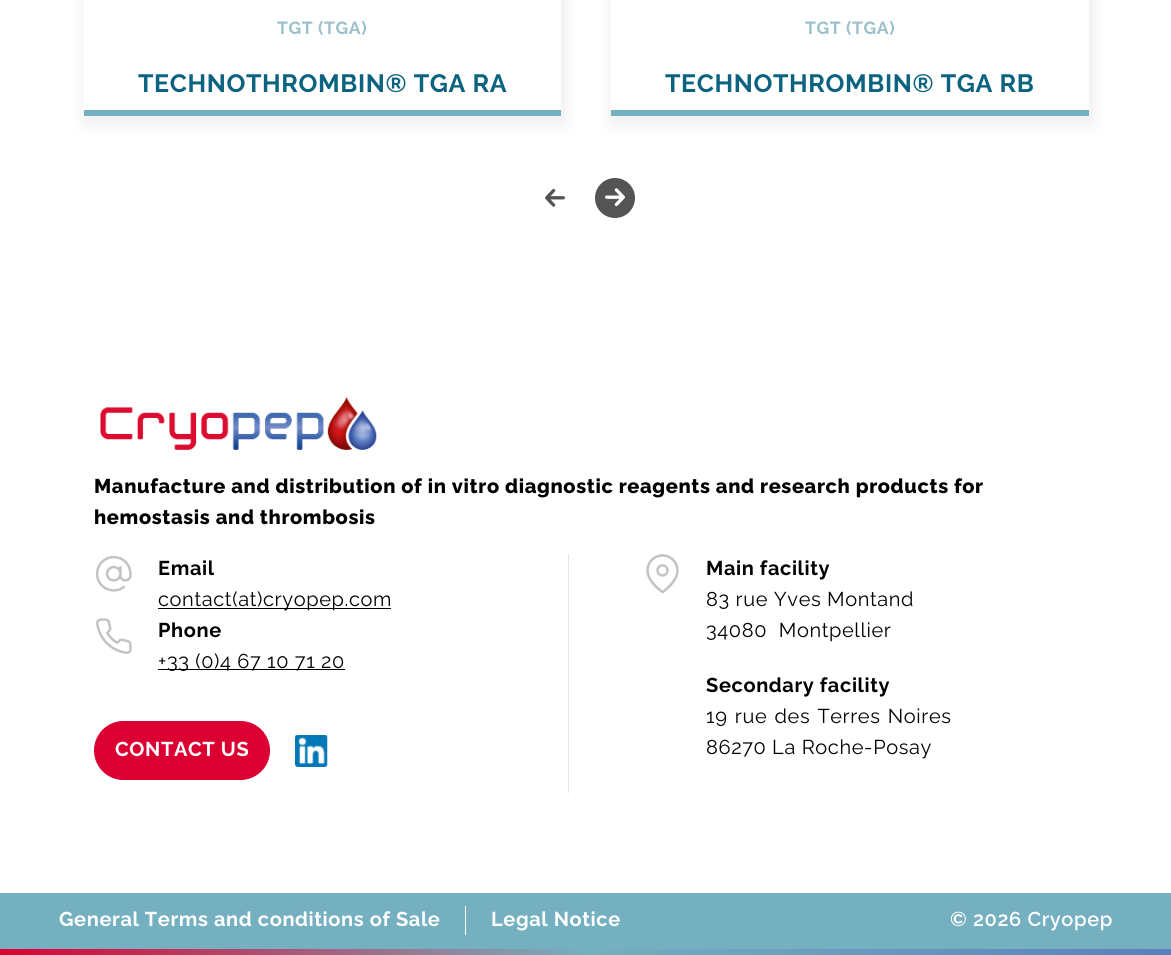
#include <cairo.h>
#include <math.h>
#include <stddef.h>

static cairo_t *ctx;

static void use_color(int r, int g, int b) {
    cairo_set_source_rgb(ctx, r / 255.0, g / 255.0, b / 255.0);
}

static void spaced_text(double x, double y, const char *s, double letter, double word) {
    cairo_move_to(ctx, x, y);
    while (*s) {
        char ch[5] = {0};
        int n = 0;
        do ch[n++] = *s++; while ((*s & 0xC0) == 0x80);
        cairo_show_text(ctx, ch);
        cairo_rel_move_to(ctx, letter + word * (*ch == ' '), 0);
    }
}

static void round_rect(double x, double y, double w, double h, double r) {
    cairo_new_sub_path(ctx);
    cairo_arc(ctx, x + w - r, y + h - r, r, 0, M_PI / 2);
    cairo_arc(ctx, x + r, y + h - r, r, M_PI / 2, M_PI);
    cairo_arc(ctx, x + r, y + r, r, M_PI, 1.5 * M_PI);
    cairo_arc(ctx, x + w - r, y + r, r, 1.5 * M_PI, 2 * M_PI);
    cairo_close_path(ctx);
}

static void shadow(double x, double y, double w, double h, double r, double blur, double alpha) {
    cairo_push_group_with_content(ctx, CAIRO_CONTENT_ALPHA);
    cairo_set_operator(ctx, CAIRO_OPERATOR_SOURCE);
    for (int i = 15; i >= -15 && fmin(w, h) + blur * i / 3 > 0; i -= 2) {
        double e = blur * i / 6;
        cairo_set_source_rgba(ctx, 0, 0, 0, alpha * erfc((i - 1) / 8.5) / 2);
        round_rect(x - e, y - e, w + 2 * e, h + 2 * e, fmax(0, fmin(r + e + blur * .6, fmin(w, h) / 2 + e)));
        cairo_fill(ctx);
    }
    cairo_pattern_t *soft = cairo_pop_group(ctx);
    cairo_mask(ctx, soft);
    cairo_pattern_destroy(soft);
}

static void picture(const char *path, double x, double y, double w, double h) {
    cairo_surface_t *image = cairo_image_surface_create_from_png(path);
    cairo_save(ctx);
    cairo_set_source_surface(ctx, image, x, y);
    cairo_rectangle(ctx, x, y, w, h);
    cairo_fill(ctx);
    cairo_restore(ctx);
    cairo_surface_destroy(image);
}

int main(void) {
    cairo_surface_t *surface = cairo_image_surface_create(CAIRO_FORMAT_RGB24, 1171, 955);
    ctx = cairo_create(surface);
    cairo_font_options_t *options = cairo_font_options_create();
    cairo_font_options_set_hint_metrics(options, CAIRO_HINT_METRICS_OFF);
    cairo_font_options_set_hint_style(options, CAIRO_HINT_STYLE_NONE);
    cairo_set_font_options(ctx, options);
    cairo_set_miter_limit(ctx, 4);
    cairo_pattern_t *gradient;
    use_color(255, 255, 255);
    cairo_paint(ctx);
    cairo_save(ctx);
    cairo_set_fill_rule(ctx, CAIRO_FILL_RULE_EVEN_ODD);
    cairo_new_path(ctx);
    cairo_move_to(ctx, 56, 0);
    cairo_line_to(ctx, 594, 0);
    cairo_line_to(ctx, 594, 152);
    cairo_line_to(ctx, 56, 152);
    cairo_close_path(ctx);
    cairo_move_to(ctx, 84, -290);
    cairo_line_to(ctx, 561, -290);
    cairo_line_to(ctx, 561, 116);
    cairo_line_to(ctx, 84, 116);
    cairo_close_path(ctx);
    cairo_clip(ctx);
    use_color(0, 0, 0);
    shadow(84, -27, 482, 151, 0, 9, 0.07);
    cairo_restore(ctx);
    use_color(116, 176, 191);
    cairo_rectangle(ctx, 84, 110, 477, 6);
    cairo_fill(ctx);
    cairo_select_font_face(ctx, "Raleway", CAIRO_FONT_SLANT_NORMAL, CAIRO_FONT_WEIGHT_BOLD);
    cairo_set_font_size(ctx, 17.5);
    use_color(155, 191, 203);
    spaced_text(277, 34, "TGT (TGA)", 0.62, 0);
    cairo_set_font_size(ctx, 25);
    use_color(11, 99, 128);
    spaced_text(138, 92, "TECHNOTHROMBIN® TGA RA", 0.62, 0);
    use_color(0, 0, 0);
    shadow(611, -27, 483, 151, 0, 9, 0.07);
    use_color(255, 255, 255);
    cairo_rectangle(ctx, 611, 0, 478, 110);
    cairo_fill(ctx);
    use_color(116, 176, 191);
    cairo_rectangle(ctx, 611, 110, 478, 6);
    cairo_fill(ctx);
    cairo_set_font_size(ctx, 17.5);
    use_color(155, 191, 203);
    spaced_text(805, 34, "TGT (TGA)", 0.62, 0);
    cairo_set_font_size(ctx, 25);
    use_color(11, 99, 128);
    spaced_text(665, 92, "TECHNOTHROMBIN® TGA RB", 0.62, 0);
    picture("img1.png", 545, 188, 20, 19);
    use_color(84, 84, 84);
    cairo_arc(ctx, 615, 198, 20, 0, 2 * M_PI);
    cairo_fill(ctx);
    picture("img2.png", 605, 188, 20, 19);
    picture("img3.png", 100, 396, 277, 54);
    cairo_select_font_face(ctx, "Raleway ExtraBold", CAIRO_FONT_SLANT_NORMAL, CAIRO_FONT_WEIGHT_NORMAL);
    cairo_set_font_size(ctx, 20);
    use_color(1, 1, 1);
    spaced_text(94, 493, "Manufacture and distribution of in vitro diagnostic reagents and research products for", 0.62, 0);
    spaced_text(94, 524, "hemostasis and thrombosis", 0.62, 0);
    picture("img4.png", 95, 555, 37, 37);
    cairo_select_font_face(ctx, "Raleway", CAIRO_FONT_SLANT_NORMAL, CAIRO_FONT_WEIGHT_BOLD);
    spaced_text(158, 575, "Email", 0.62, 0);
    cairo_rectangle(ctx, 158, 608, 233, 1);
    cairo_fill(ctx);
    cairo_select_font_face(ctx, "Raleway", CAIRO_FONT_SLANT_NORMAL, CAIRO_FONT_WEIGHT_NORMAL);
    spaced_text(158, 606, "contact(at)cryopep.com", 0.62, 0);
    picture("img5.png", 96, 618, 36, 36);
    cairo_select_font_face(ctx, "Raleway", CAIRO_FONT_SLANT_NORMAL, CAIRO_FONT_WEIGHT_BOLD);
    spaced_text(158, 637, "Phone", 0.62, 0);
    cairo_rectangle(ctx, 158, 669, 187, 1);
    cairo_fill(ctx);
    cairo_select_font_face(ctx, "Raleway", CAIRO_FONT_SLANT_NORMAL, CAIRO_FONT_WEIGHT_NORMAL);
    spaced_text(158, 668, "+33 (0)4 67 10 71 20", 0.62, 0);
    use_color(220, 0, 50);
    round_rect(94.5, 721.5, 175, 58, 29);
    cairo_fill_preserve(ctx);
    cairo_set_line_width(ctx, 1);
    cairo_stroke(ctx);
    cairo_select_font_face(ctx, "Raleway", CAIRO_FONT_SLANT_NORMAL, CAIRO_FONT_WEIGHT_BOLD);
    use_color(255, 255, 255);
    spaced_text(115, 756, "CONTACT US", 0.62, 0);
    picture("img6.png", 295, 735, 33, 32);
    use_color(229, 229, 229);
    cairo_rectangle(ctx, 568, 554, 1, 239);
    cairo_fill(ctx);
    picture("img7.png", 646, 554, 33, 40);
    use_color(1, 1, 1);
    spaced_text(706, 575, "Main facility", 0.62, 0);
    cairo_select_font_face(ctx, "Raleway", CAIRO_FONT_SLANT_NORMAL, CAIRO_FONT_WEIGHT_NORMAL);
    spaced_text(706, 606, "83 rue Yves Montand", 0.62, 0);
    spaced_text(706, 637, "34080 Montpellier", 0.62, 6);
    cairo_select_font_face(ctx, "Raleway", CAIRO_FONT_SLANT_NORMAL, CAIRO_FONT_WEIGHT_BOLD);
    spaced_text(706, 692, "Secondary facility", 0.62, 0);
    cairo_select_font_face(ctx, "Raleway", CAIRO_FONT_SLANT_NORMAL, CAIRO_FONT_WEIGHT_NORMAL);
    spaced_text(706, 723, "19 rue des Terres Noires", 0.62, 1.5);
    spaced_text(706, 754, "86270 La Roche-Posay", 0.62, 0);
    use_color(116, 176, 191);
    cairo_rectangle(ctx, 0, 893, 1171, 56);
    cairo_fill(ctx);
    cairo_select_font_face(ctx, "Raleway", CAIRO_FONT_SLANT_NORMAL, CAIRO_FONT_WEIGHT_BOLD);
    use_color(255, 255, 255);
    spaced_text(59, 926, "General Terms and conditions of Sale", 0.62, 0);
    cairo_rectangle(ctx, 465, 906, 1, 29);
    cairo_fill(ctx);
    spaced_text(491, 926, "Legal Notice", 0.62, 0);
    cairo_select_font_face(ctx, "Raleway SemiBold", CAIRO_FONT_SLANT_NORMAL, CAIRO_FONT_WEIGHT_NORMAL);
    spaced_text(950, 926, "© 2026 Cryopep", 0.62, 0);
    gradient = cairo_pattern_create_linear(0, 952, 1171, 952);
    cairo_pattern_add_color_stop_rgba(gradient, 0, 0.863, 0, 0.196, 1);
    cairo_pattern_add_color_stop_rgba(gradient, 0.5, 0.455, 0.69, 0.749, 1);
    cairo_pattern_add_color_stop_rgba(gradient, 1, 0.353, 0.502, 0.741, 1);
    cairo_set_source(ctx, gradient);
    cairo_pattern_destroy(gradient);
    cairo_rectangle(ctx, 0, 949, 1171, 6);
    cairo_fill(ctx);
    cairo_surface_write_to_png(surface, "result.png");
    cairo_font_options_destroy(options);
    cairo_destroy(ctx);
    cairo_surface_destroy(surface);
    return 0;
}
